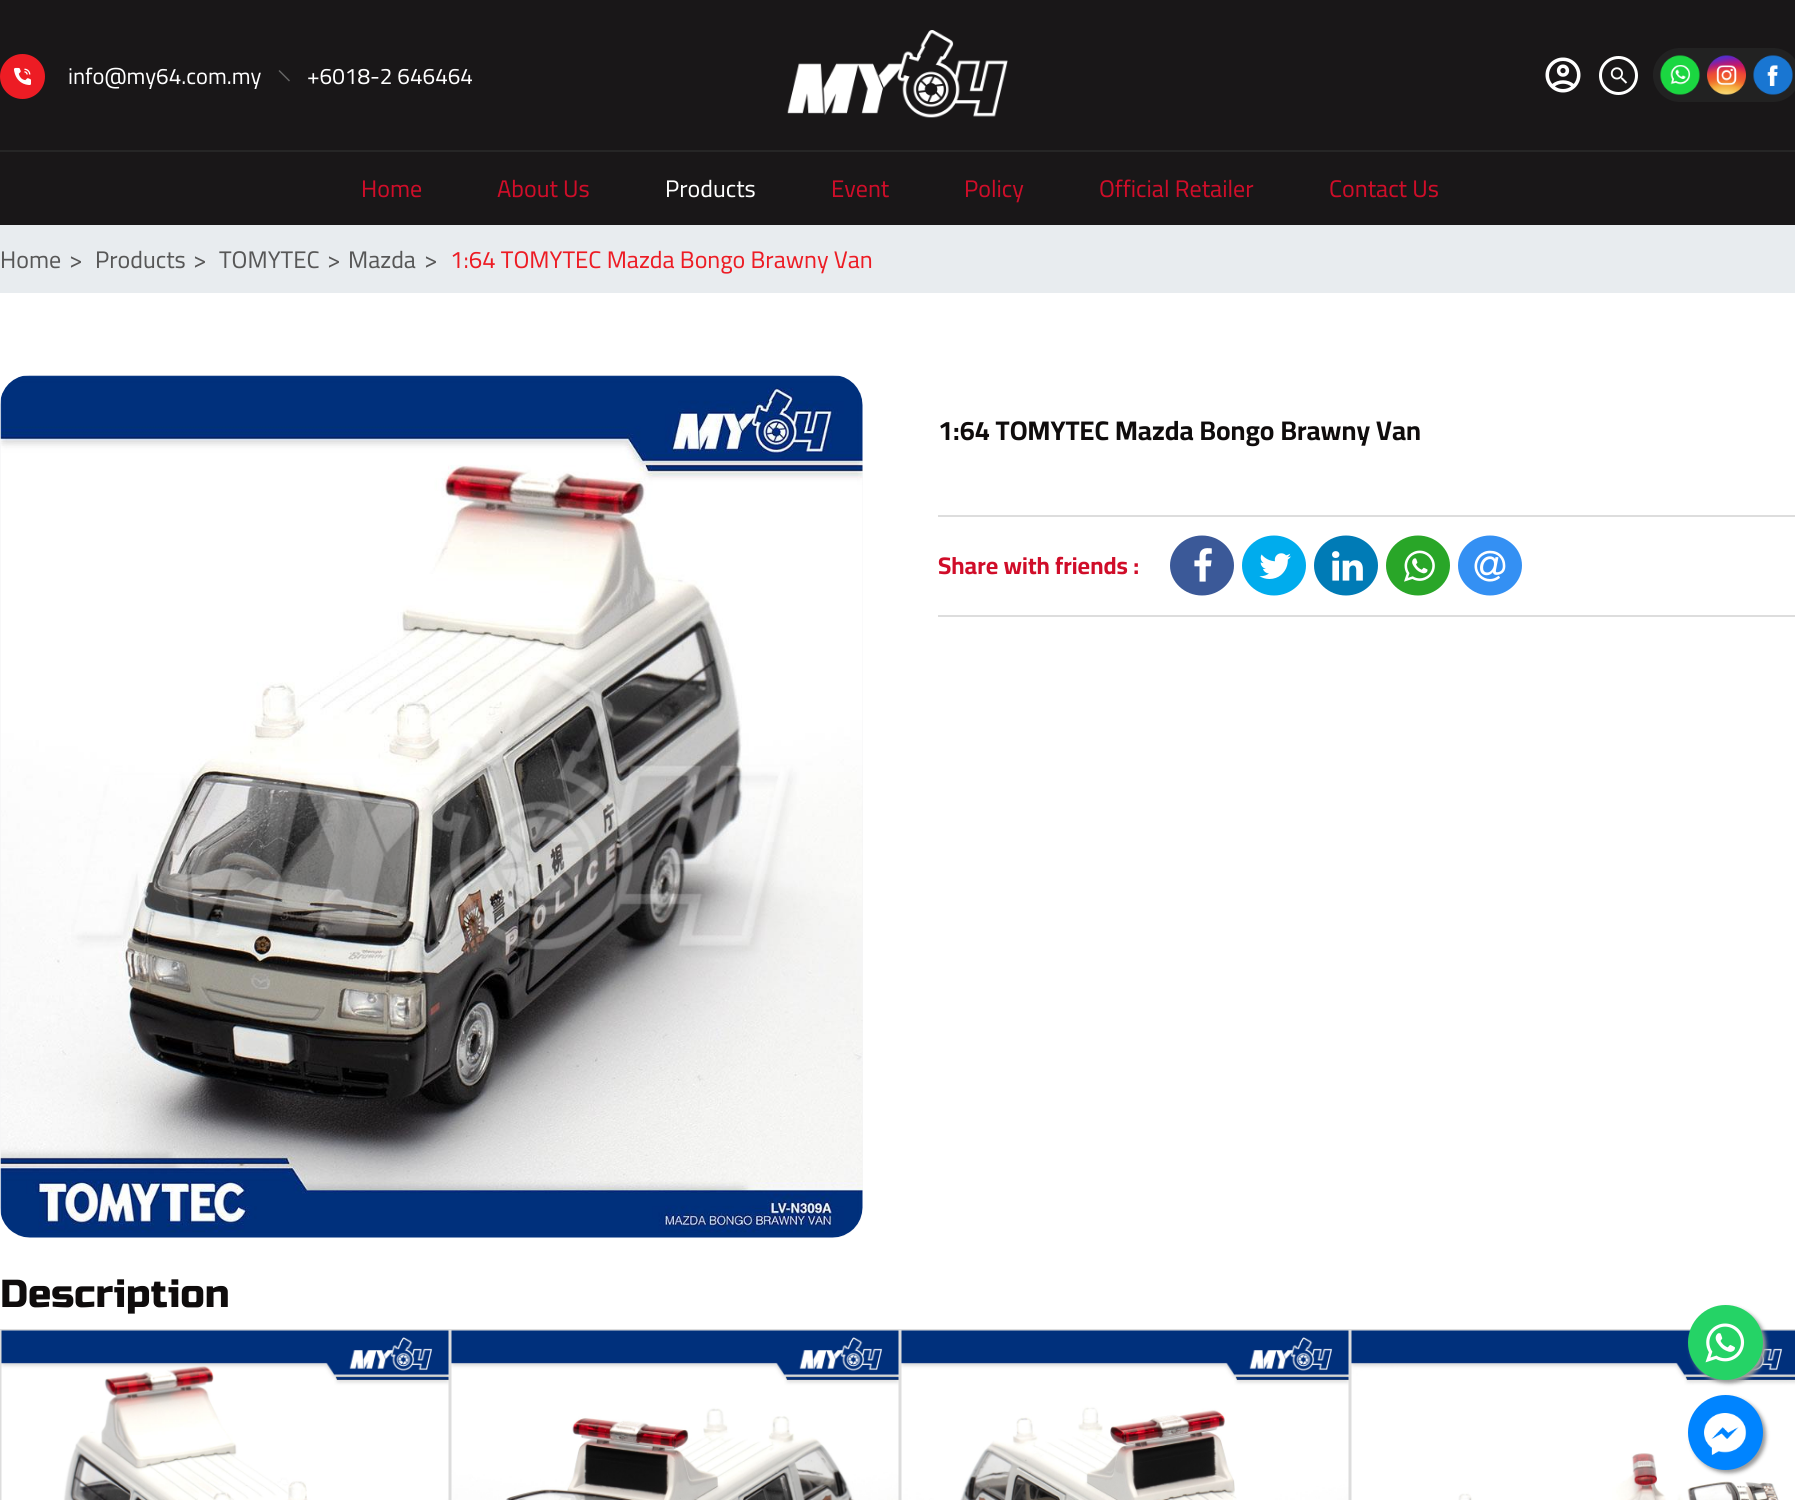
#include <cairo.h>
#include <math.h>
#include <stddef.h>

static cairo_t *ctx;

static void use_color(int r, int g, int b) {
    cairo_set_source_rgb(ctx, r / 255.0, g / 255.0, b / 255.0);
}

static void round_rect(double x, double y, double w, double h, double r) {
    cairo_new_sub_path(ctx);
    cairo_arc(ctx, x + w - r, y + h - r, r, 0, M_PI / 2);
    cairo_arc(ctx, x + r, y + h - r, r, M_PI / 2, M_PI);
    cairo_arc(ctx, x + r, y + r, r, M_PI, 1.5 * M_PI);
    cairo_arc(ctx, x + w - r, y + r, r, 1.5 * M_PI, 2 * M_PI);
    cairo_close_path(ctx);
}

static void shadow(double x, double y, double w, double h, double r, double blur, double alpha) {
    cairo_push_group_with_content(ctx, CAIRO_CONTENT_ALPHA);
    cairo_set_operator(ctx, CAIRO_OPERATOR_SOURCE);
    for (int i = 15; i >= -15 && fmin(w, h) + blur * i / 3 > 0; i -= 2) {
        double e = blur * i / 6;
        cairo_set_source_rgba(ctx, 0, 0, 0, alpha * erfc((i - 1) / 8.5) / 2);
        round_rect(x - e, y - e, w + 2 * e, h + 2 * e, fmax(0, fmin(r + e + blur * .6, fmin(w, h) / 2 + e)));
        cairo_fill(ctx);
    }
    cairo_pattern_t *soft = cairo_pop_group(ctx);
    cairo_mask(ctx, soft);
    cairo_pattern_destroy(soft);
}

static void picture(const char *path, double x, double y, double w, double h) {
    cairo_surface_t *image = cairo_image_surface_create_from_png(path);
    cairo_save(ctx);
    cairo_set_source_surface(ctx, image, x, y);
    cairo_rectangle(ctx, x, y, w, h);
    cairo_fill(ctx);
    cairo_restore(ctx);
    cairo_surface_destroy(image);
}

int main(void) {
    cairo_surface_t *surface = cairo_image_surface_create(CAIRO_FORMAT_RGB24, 1795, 1500);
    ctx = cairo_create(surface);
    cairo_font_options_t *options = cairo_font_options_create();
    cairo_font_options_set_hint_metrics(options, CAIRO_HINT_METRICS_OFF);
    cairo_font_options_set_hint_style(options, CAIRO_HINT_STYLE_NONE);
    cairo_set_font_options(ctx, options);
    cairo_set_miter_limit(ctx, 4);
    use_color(255, 255, 255);
    cairo_paint(ctx);
    use_color(25, 23, 24);
    cairo_rectangle(ctx, 0, 0, 1795, 225);
    cairo_fill(ctx);
    use_color(237, 28, 36);
    cairo_arc(ctx, 22.5, 76.5, 22.5, 0, 2 * M_PI);
    cairo_fill(ctx);
    picture("img1.png", 14, 67, 17, 18);
    cairo_select_font_face(ctx, "Cairo", CAIRO_FONT_SLANT_NORMAL, CAIRO_FONT_WEIGHT_NORMAL);
    cairo_set_font_size(ctx, 22.5);
    use_color(255, 255, 255);
    cairo_move_to(ctx, 68, 84);
    cairo_show_text(ctx, "info@my64.com.my");
    use_color(102, 102, 102);
    cairo_new_path(ctx);
    cairo_move_to(ctx, 278.5, 71);
    cairo_line_to(ctx, 279.5, 70);
    cairo_line_to(ctx, 290, 80.5);
    cairo_line_to(ctx, 289, 81.5);
    cairo_close_path(ctx);
    cairo_fill(ctx);
    use_color(255, 255, 255);
    cairo_move_to(ctx, 307, 84);
    cairo_show_text(ctx, "+6018-2 646464");
    picture("img2.png", 787, 30, 221, 88);
    picture("img3.png", 1545, 57, 36, 36);
    cairo_arc(ctx, 1618.5, 75.5, 18, 0, 2 * M_PI);
    cairo_set_line_width(ctx, 3);
    cairo_stroke(ctx);
    picture("img4.png", 1610, 67, 18, 17);
    use_color(34, 34, 34);
    round_rect(1653, 48, 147, 54, 27);
    cairo_fill(ctx);
    picture("img5.png", 1660, 55, 40, 40);
    picture("img6.png", 1707, 55, 39, 40);
    picture("img7.png", 1753, 55, 40, 40);
    use_color(38, 38, 38);
    cairo_rectangle(ctx, 0, 150, 1795, 2);
    cairo_fill(ctx);
    cairo_set_font_size(ctx, 24);
    use_color(208, 13, 41);
    cairo_move_to(ctx, 361, 197);
    cairo_show_text(ctx, "Home");
    cairo_move_to(ctx, 497, 197);
    cairo_show_text(ctx, "About Us");
    use_color(255, 255, 255);
    cairo_move_to(ctx, 665, 197);
    cairo_show_text(ctx, "Products");
    use_color(208, 13, 41);
    cairo_move_to(ctx, 831, 197);
    cairo_show_text(ctx, "Event");
    cairo_move_to(ctx, 964, 197);
    cairo_show_text(ctx, "Policy");
    cairo_move_to(ctx, 1099, 197);
    cairo_show_text(ctx, "Official Retailer");
    cairo_move_to(ctx, 1329, 197);
    cairo_show_text(ctx, "Contact Us");
    use_color(232, 236, 239);
    cairo_rectangle(ctx, 0, 225, 1795, 68);
    cairo_fill(ctx);
    use_color(87, 87, 87);
    cairo_move_to(ctx, 0, 268);
    cairo_show_text(ctx, "Home");
    cairo_move_to(ctx, 69, 268);
    cairo_show_text(ctx, ">");
    cairo_move_to(ctx, 95, 268);
    cairo_show_text(ctx, "Products");
    cairo_move_to(ctx, 193, 268);
    cairo_show_text(ctx, ">");
    cairo_move_to(ctx, 219, 268);
    cairo_show_text(ctx, "TOMYTEC");
    cairo_move_to(ctx, 327, 268);
    cairo_show_text(ctx, ">");
    cairo_move_to(ctx, 348, 268);
    cairo_show_text(ctx, "Mazda");
    cairo_move_to(ctx, 424, 268);
    cairo_show_text(ctx, ">");
    use_color(237, 28, 36);
    cairo_move_to(ctx, 450, 268);
    cairo_show_text(ctx, "1:64 TOMYTEC Mazda Bongo Brawny Van");
    use_color(245, 245, 247);
    round_rect(0, 375, 863, 863, 30);
    cairo_fill(ctx);
    picture("img8.png", 0, 375, 863, 863);
    cairo_select_font_face(ctx, "Cairo", CAIRO_FONT_SLANT_NORMAL, CAIRO_FONT_WEIGHT_BOLD);
    cairo_set_font_size(ctx, 27);
    use_color(15, 12, 12);
    cairo_move_to(ctx, 938, 440);
    cairo_show_text(ctx, "1:64 TOMYTEC Mazda Bongo Brawny Van");
    use_color(221, 221, 221);
    cairo_rectangle(ctx, 938, 515, 857, 2);
    cairo_fill(ctx);
    cairo_rectangle(ctx, 938, 615, 857, 2);
    cairo_fill(ctx);
    cairo_set_font_size(ctx, 24);
    use_color(208, 13, 41);
    cairo_move_to(ctx, 938, 574);
    cairo_show_text(ctx, "Share with friends :");
    use_color(59, 89, 152);
    cairo_new_path(ctx);
    cairo_move_to(ctx, 1202, 535.5);
    cairo_curve_to(ctx, 1219.5, 535.5, 1234, 549, 1234, 565.5);
    cairo_curve_to(ctx, 1234, 582, 1219.5, 595.5, 1202, 595.5);
    cairo_curve_to(ctx, 1184.5, 595.5, 1170, 582, 1170, 565.5);
    cairo_curve_to(ctx, 1170, 549, 1184.5, 535.5, 1202, 535.5);
    cairo_close_path(ctx);
    cairo_fill(ctx);
    picture("img9.png", 1194, 548, 18, 34);
    use_color(0, 172, 237);
    cairo_new_path(ctx);
    cairo_move_to(ctx, 1274, 535.5);
    cairo_curve_to(ctx, 1291.5, 535.5, 1306, 549, 1306, 565.5);
    cairo_curve_to(ctx, 1306, 582, 1291.5, 595.5, 1274, 595.5);
    cairo_curve_to(ctx, 1256.5, 595.5, 1242, 582, 1242, 565.5);
    cairo_curve_to(ctx, 1242, 549, 1256.5, 535.5, 1274, 535.5);
    cairo_close_path(ctx);
    cairo_fill(ctx);
    picture("img10.png", 1259, 553, 32, 26);
    use_color(0, 123, 182);
    cairo_new_path(ctx);
    cairo_move_to(ctx, 1346, 535.5);
    cairo_curve_to(ctx, 1363.5, 535.5, 1378, 549, 1378, 565.5);
    cairo_curve_to(ctx, 1378, 582, 1363.5, 595.5, 1346, 595.5);
    cairo_curve_to(ctx, 1328.5, 595.5, 1314, 582, 1314, 565.5);
    cairo_curve_to(ctx, 1314, 549, 1328.5, 535.5, 1346, 535.5);
    cairo_close_path(ctx);
    cairo_fill(ctx);
    picture("img11.png", 1332, 551, 31, 30);
    use_color(41, 166, 40);
    cairo_new_path(ctx);
    cairo_move_to(ctx, 1418, 535.5);
    cairo_curve_to(ctx, 1435.5, 535.5, 1450, 549, 1450, 565.5);
    cairo_curve_to(ctx, 1450, 582, 1435.5, 595.5, 1418, 595.5);
    cairo_curve_to(ctx, 1400.5, 595.5, 1386, 582, 1386, 565.5);
    cairo_curve_to(ctx, 1386, 549, 1400.5, 535.5, 1418, 535.5);
    cairo_close_path(ctx);
    cairo_fill(ctx);
    picture("img12.png", 1404, 550, 31, 32);
    use_color(52, 144, 243);
    cairo_new_path(ctx);
    cairo_move_to(ctx, 1490, 535.5);
    cairo_curve_to(ctx, 1507.5, 535.5, 1522, 549, 1522, 565.5);
    cairo_curve_to(ctx, 1522, 582, 1507.5, 595.5, 1490, 595.5);
    cairo_curve_to(ctx, 1472.5, 595.5, 1458, 582, 1458, 565.5);
    cairo_curve_to(ctx, 1458, 549, 1472.5, 535.5, 1490, 535.5);
    cairo_close_path(ctx);
    cairo_fill(ctx);
    picture("img13.png", 1474, 550, 32, 32);
    cairo_select_font_face(ctx, "Russo One", CAIRO_FONT_SLANT_NORMAL, CAIRO_FONT_WEIGHT_NORMAL);
    cairo_set_font_size(ctx, 39);
    use_color(15, 12, 12);
    cairo_move_to(ctx, 0, 1307);
    cairo_show_text(ctx, "Description");
    cairo_rectangle(ctx, 1, 1330, 448, 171);
    use_color(221, 221, 221);
    cairo_set_line_width(ctx, 2);
    cairo_stroke(ctx);
    picture("img14.png", 1, 1330, 448, 170);
    cairo_rectangle(ctx, 451, 1330, 448, 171);
    cairo_stroke(ctx);
    picture("img15.png", 451, 1330, 448, 170);
    cairo_rectangle(ctx, 901, 1330, 448, 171);
    cairo_stroke(ctx);
    picture("img16.png", 901, 1330, 448, 170);
    cairo_rectangle(ctx, 1351, 1330, 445, 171);
    cairo_stroke(ctx);
    picture("img17.png", 1351, 1330, 444, 170);
    use_color(153, 153, 153);
    shadow(1691, 1308, 75, 75, 37.5, 2, 1);
    use_color(37, 211, 102);
    cairo_arc(ctx, 1725.5, 1342.5, 37.5, 0, 2 * M_PI);
    cairo_fill(ctx);
    picture("img18.png", 1705, 1323, 40, 40);
    use_color(153, 153, 153);
    shadow(1691, 1398, 75, 75, 37.5, 2, 1);
    use_color(0, 132, 255);
    cairo_arc(ctx, 1725.5, 1432.5, 37.5, 0, 2 * M_PI);
    cairo_fill(ctx);
    picture("img19.png", 1704, 1413, 43, 43);
    cairo_surface_write_to_png(surface, "result.png");
    cairo_font_options_destroy(options);
    cairo_destroy(ctx);
    cairo_surface_destroy(surface);
    return 0;
}
